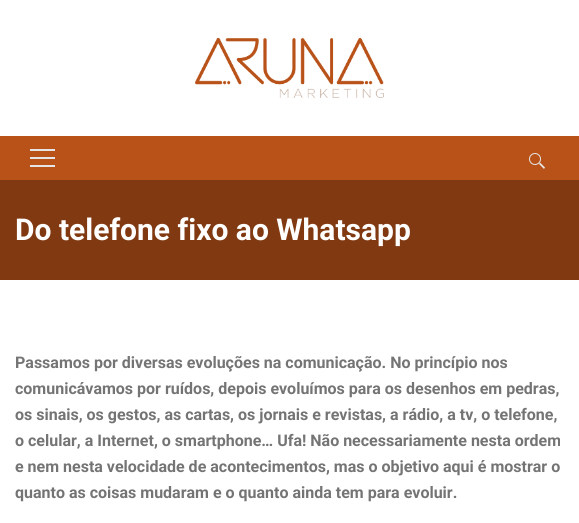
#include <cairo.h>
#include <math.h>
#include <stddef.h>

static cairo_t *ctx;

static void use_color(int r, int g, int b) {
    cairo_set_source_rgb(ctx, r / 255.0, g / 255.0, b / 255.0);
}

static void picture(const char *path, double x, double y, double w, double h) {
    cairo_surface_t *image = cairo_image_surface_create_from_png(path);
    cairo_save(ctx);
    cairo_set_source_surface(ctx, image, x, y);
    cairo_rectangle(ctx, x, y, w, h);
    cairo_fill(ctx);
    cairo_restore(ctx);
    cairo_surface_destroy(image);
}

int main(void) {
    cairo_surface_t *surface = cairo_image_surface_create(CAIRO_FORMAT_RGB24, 579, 523);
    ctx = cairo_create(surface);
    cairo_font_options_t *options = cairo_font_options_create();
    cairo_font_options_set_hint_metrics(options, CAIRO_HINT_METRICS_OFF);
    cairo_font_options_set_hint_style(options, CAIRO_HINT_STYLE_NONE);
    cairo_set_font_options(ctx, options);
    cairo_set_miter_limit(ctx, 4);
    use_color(255, 255, 255);
    cairo_paint(ctx);
    picture("img1.png", 195, 38, 189, 60);
    use_color(184, 82, 25);
    cairo_rectangle(ctx, 0, 136, 579, 44);
    cairo_fill(ctx);
    use_color(229, 229, 229);
    cairo_rectangle(ctx, 30, 149, 25, 2);
    cairo_fill(ctx);
    cairo_rectangle(ctx, 30, 157, 25, 2);
    cairo_fill(ctx);
    cairo_rectangle(ctx, 30, 165, 25, 2);
    cairo_fill(ctx);
    cairo_new_path(ctx);
    cairo_move_to(ctx, 539, 164);
    cairo_line_to(ctx, 540, 162.5);
    cairo_line_to(ctx, 545, 167.5);
    cairo_line_to(ctx, 544, 169);
    cairo_close_path(ctx);
    cairo_fill(ctx);
    cairo_arc(ctx, 535, 159, 5.5, 0, 2 * M_PI);
    cairo_set_line_width(ctx, 1);
    cairo_stroke(ctx);
    use_color(129, 57, 18);
    cairo_rectangle(ctx, 0, 180, 579, 100);
    cairo_fill(ctx);
    cairo_select_font_face(ctx, "Roboto", CAIRO_FONT_SLANT_NORMAL, CAIRO_FONT_WEIGHT_BOLD);
    cairo_set_font_size(ctx, 30);
    use_color(255, 255, 255);
    cairo_move_to(ctx, 15, 240);
    cairo_show_text(ctx, "Do telefone fixo ao Whatsapp");
    cairo_set_font_size(ctx, 16);
    use_color(116, 116, 116);
    cairo_move_to(ctx, 15, 368);
    cairo_show_text(ctx, "Passamos por diversas evoluções na comunicação. No princípio nos");
    cairo_move_to(ctx, 15, 394);
    cairo_show_text(ctx, "comunicávamos por ruídos, depois evoluímos para os desenhos em pedras,");
    cairo_move_to(ctx, 15, 420);
    cairo_show_text(ctx, "os sinais, os gestos, as cartas, os jornais e revistas, a rádio, a tv, o telefone,");
    cairo_move_to(ctx, 15, 446);
    cairo_show_text(ctx, "o celular, a Internet, o smartphone… Ufa! Não necessariamente nesta ordem");
    cairo_move_to(ctx, 15, 472);
    cairo_show_text(ctx, "e nem nesta velocidade de acontecimentos, mas o objetivo aqui é mostrar o");
    cairo_move_to(ctx, 15, 498);
    cairo_show_text(ctx, "quanto as coisas mudaram e o quanto ainda tem para evoluir.");
    cairo_surface_write_to_png(surface, "result.png");
    cairo_font_options_destroy(options);
    cairo_destroy(ctx);
    cairo_surface_destroy(surface);
    return 0;
}
